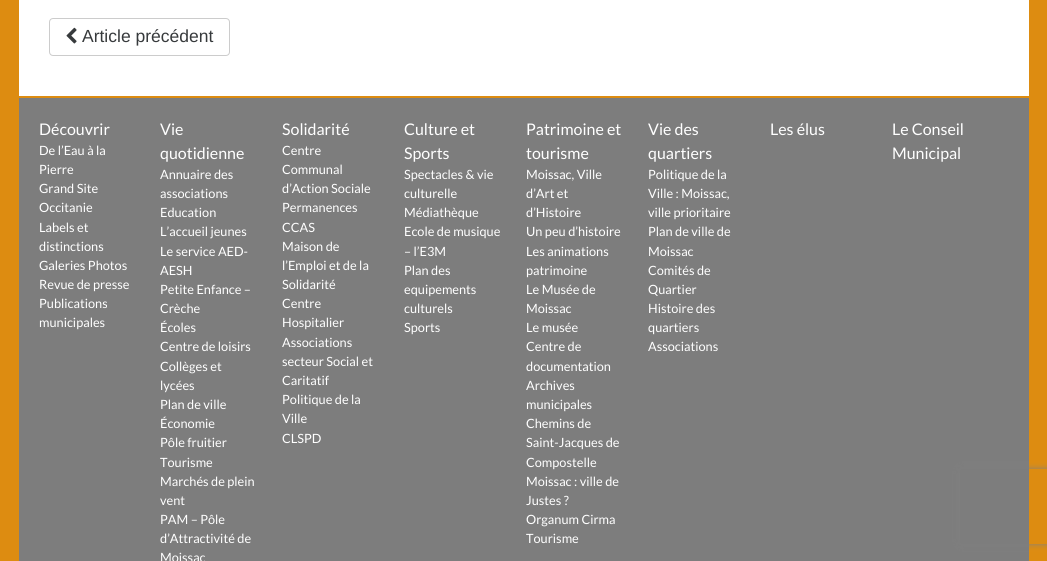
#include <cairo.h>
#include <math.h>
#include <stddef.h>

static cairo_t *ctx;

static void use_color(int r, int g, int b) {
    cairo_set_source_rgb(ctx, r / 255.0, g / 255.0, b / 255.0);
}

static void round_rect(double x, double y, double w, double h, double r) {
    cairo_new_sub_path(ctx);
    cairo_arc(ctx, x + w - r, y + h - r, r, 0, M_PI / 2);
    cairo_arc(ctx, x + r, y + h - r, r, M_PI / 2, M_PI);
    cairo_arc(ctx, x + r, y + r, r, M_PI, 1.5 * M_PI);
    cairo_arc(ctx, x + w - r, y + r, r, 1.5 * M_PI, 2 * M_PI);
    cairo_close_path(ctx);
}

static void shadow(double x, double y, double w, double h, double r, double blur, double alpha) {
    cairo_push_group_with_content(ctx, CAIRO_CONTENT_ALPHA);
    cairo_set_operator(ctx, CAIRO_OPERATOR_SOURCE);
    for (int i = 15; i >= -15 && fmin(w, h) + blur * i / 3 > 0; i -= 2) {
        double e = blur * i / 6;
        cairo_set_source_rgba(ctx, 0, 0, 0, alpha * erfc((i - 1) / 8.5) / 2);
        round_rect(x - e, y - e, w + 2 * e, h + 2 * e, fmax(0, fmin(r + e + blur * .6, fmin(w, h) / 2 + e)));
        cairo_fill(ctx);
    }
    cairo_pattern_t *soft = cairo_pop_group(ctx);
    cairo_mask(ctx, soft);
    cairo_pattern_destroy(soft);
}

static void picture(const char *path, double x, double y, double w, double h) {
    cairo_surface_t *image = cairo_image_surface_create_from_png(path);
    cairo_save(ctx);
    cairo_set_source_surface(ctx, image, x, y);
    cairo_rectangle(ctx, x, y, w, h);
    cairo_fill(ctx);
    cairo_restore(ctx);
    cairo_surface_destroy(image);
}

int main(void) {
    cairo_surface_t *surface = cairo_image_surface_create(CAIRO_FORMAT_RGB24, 1047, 561);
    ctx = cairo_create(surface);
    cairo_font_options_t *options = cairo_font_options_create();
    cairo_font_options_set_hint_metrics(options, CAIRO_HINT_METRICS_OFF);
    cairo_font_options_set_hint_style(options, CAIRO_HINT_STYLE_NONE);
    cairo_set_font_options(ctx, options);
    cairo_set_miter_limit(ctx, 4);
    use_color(221, 140, 17);
    cairo_paint(ctx);
    use_color(255, 255, 255);
    cairo_rectangle(ctx, 19, 0, 1010, 96);
    cairo_fill(ctx);
    round_rect(49.5, 18.5, 180, 37, 3.5);
    use_color(204, 204, 204);
    cairo_set_line_width(ctx, 1);
    cairo_stroke(ctx);
    picture("img1.png", 66, 27, 11, 17);
    cairo_select_font_face(ctx, "Liberation Sans", CAIRO_FONT_SLANT_NORMAL, CAIRO_FONT_WEIGHT_NORMAL);
    cairo_set_font_size(ctx, 17.5);
    use_color(55, 58, 60);
    cairo_move_to(ctx, 82, 42);
    cairo_show_text(ctx, "Article précédent");
    use_color(125, 125, 125);
    cairo_rectangle(ctx, 19, 98, 1010, 463);
    cairo_fill(ctx);
    cairo_select_font_face(ctx, "Lato", CAIRO_FONT_SLANT_NORMAL, CAIRO_FONT_WEIGHT_NORMAL);
    cairo_set_font_size(ctx, 16);
    use_color(255, 255, 255);
    cairo_move_to(ctx, 39, 135);
    cairo_show_text(ctx, "Découvrir");
    cairo_set_font_size(ctx, 12.75);
    cairo_move_to(ctx, 39, 155);
    cairo_show_text(ctx, "De l’Eau à la");
    cairo_move_to(ctx, 39, 174);
    cairo_show_text(ctx, "Pierre");
    cairo_move_to(ctx, 39, 193);
    cairo_show_text(ctx, "Grand Site");
    cairo_move_to(ctx, 39, 212);
    cairo_show_text(ctx, "Occitanie");
    cairo_move_to(ctx, 39, 232);
    cairo_show_text(ctx, "Labels et");
    cairo_move_to(ctx, 39, 251);
    cairo_show_text(ctx, "distinctions");
    cairo_move_to(ctx, 39, 270);
    cairo_show_text(ctx, "Galeries Photos");
    cairo_move_to(ctx, 39, 289);
    cairo_show_text(ctx, "Revue de presse");
    cairo_move_to(ctx, 39, 308);
    cairo_show_text(ctx, "Publications");
    cairo_move_to(ctx, 39, 327);
    cairo_show_text(ctx, "municipales");
    cairo_set_font_size(ctx, 16);
    cairo_move_to(ctx, 160, 135);
    cairo_show_text(ctx, "Vie");
    cairo_move_to(ctx, 160, 159);
    cairo_show_text(ctx, "quotidienne");
    cairo_set_font_size(ctx, 12.75);
    cairo_move_to(ctx, 160, 179);
    cairo_show_text(ctx, "Annuaire des");
    cairo_move_to(ctx, 160, 198);
    cairo_show_text(ctx, "associations");
    cairo_move_to(ctx, 160, 217);
    cairo_show_text(ctx, "Education");
    cairo_move_to(ctx, 160, 236);
    cairo_show_text(ctx, "L’accueil jeunes");
    cairo_move_to(ctx, 160, 256);
    cairo_show_text(ctx, "Le service AED-");
    cairo_move_to(ctx, 160, 275);
    cairo_show_text(ctx, "AESH");
    cairo_move_to(ctx, 160, 294);
    cairo_show_text(ctx, "Petite Enfance –");
    cairo_move_to(ctx, 160, 313);
    cairo_show_text(ctx, "Crèche");
    cairo_move_to(ctx, 160, 332);
    cairo_show_text(ctx, "Écoles");
    cairo_move_to(ctx, 160, 351);
    cairo_show_text(ctx, "Centre de loisirs");
    cairo_move_to(ctx, 160, 371);
    cairo_show_text(ctx, "Collèges et");
    cairo_move_to(ctx, 160, 390);
    cairo_show_text(ctx, "lycées");
    cairo_move_to(ctx, 160, 409);
    cairo_show_text(ctx, "Plan de ville");
    cairo_move_to(ctx, 160, 428);
    cairo_show_text(ctx, "Économie");
    cairo_move_to(ctx, 160, 447);
    cairo_show_text(ctx, "Pôle fruitier");
    cairo_move_to(ctx, 160, 467);
    cairo_show_text(ctx, "Tourisme");
    cairo_move_to(ctx, 160, 486);
    cairo_show_text(ctx, "Marchés de plein");
    cairo_move_to(ctx, 160, 505);
    cairo_show_text(ctx, "vent");
    cairo_move_to(ctx, 160, 524);
    cairo_show_text(ctx, "PAM – Pôle");
    cairo_move_to(ctx, 160, 543);
    cairo_show_text(ctx, "d’Attractivité de");
    cairo_move_to(ctx, 160, 562);
    cairo_show_text(ctx, "Moissac");
    cairo_set_font_size(ctx, 16);
    cairo_move_to(ctx, 282, 135);
    cairo_show_text(ctx, "Solidarité");
    cairo_set_font_size(ctx, 12.75);
    cairo_move_to(ctx, 282, 155);
    cairo_show_text(ctx, "Centre");
    cairo_move_to(ctx, 282, 174);
    cairo_show_text(ctx, "Communal");
    cairo_move_to(ctx, 282, 193);
    cairo_show_text(ctx, "d’Action Sociale");
    cairo_move_to(ctx, 282, 212);
    cairo_show_text(ctx, "Permanences");
    cairo_move_to(ctx, 282, 232);
    cairo_show_text(ctx, "CCAS");
    cairo_move_to(ctx, 282, 251);
    cairo_show_text(ctx, "Maison de");
    cairo_move_to(ctx, 282, 270);
    cairo_show_text(ctx, "l’Emploi et de la");
    cairo_move_to(ctx, 282, 289);
    cairo_show_text(ctx, "Solidarité");
    cairo_move_to(ctx, 282, 308);
    cairo_show_text(ctx, "Centre");
    cairo_move_to(ctx, 282, 327);
    cairo_show_text(ctx, "Hospitalier");
    cairo_move_to(ctx, 282, 347);
    cairo_show_text(ctx, "Associations");
    cairo_move_to(ctx, 282, 366);
    cairo_show_text(ctx, "secteur Social et");
    cairo_move_to(ctx, 282, 385);
    cairo_show_text(ctx, "Caritatif");
    cairo_move_to(ctx, 282, 404);
    cairo_show_text(ctx, "Politique de la");
    cairo_move_to(ctx, 282, 423);
    cairo_show_text(ctx, "Ville");
    cairo_move_to(ctx, 282, 443);
    cairo_show_text(ctx, "CLSPD");
    cairo_set_font_size(ctx, 16);
    cairo_move_to(ctx, 404, 135);
    cairo_show_text(ctx, "Culture et");
    cairo_move_to(ctx, 404, 159);
    cairo_show_text(ctx, "Sports");
    cairo_set_font_size(ctx, 12.75);
    cairo_move_to(ctx, 404, 179);
    cairo_show_text(ctx, "Spectacles & vie");
    cairo_move_to(ctx, 404, 198);
    cairo_show_text(ctx, "culturelle");
    cairo_move_to(ctx, 404, 217);
    cairo_show_text(ctx, "Médiathèque");
    cairo_move_to(ctx, 404, 236);
    cairo_show_text(ctx, "Ecole de musique");
    cairo_move_to(ctx, 404, 256);
    cairo_show_text(ctx, "– l’E3M");
    cairo_move_to(ctx, 404, 275);
    cairo_show_text(ctx, "Plan des");
    cairo_move_to(ctx, 404, 294);
    cairo_show_text(ctx, "equipements");
    cairo_move_to(ctx, 404, 313);
    cairo_show_text(ctx, "culturels");
    cairo_move_to(ctx, 404, 332);
    cairo_show_text(ctx, "Sports");
    cairo_set_font_size(ctx, 16);
    cairo_move_to(ctx, 526, 135);
    cairo_show_text(ctx, "Patrimoine et");
    cairo_move_to(ctx, 526, 159);
    cairo_show_text(ctx, "tourisme");
    cairo_set_font_size(ctx, 12.75);
    cairo_move_to(ctx, 526, 179);
    cairo_show_text(ctx, "Moissac, Ville");
    cairo_move_to(ctx, 526, 198);
    cairo_show_text(ctx, "d’Art et");
    cairo_move_to(ctx, 526, 217);
    cairo_show_text(ctx, "d’Histoire");
    cairo_move_to(ctx, 526, 236);
    cairo_show_text(ctx, "Un peu d’histoire");
    cairo_move_to(ctx, 526, 256);
    cairo_show_text(ctx, "Les animations");
    cairo_move_to(ctx, 526, 275);
    cairo_show_text(ctx, "patrimoine");
    cairo_move_to(ctx, 526, 294);
    cairo_show_text(ctx, "Le Musée de");
    cairo_move_to(ctx, 526, 313);
    cairo_show_text(ctx, "Moissac");
    cairo_move_to(ctx, 526, 332);
    cairo_show_text(ctx, "Le musée");
    cairo_move_to(ctx, 526, 351);
    cairo_show_text(ctx, "Centre de");
    cairo_move_to(ctx, 526, 371);
    cairo_show_text(ctx, "documentation");
    cairo_move_to(ctx, 526, 390);
    cairo_show_text(ctx, "Archives");
    cairo_move_to(ctx, 526, 409);
    cairo_show_text(ctx, "municipales");
    cairo_move_to(ctx, 526, 428);
    cairo_show_text(ctx, "Chemins de");
    cairo_move_to(ctx, 526, 447);
    cairo_show_text(ctx, "Saint-Jacques de");
    cairo_move_to(ctx, 526, 467);
    cairo_show_text(ctx, "Compostelle");
    cairo_move_to(ctx, 526, 486);
    cairo_show_text(ctx, "Moissac : ville de");
    cairo_move_to(ctx, 526, 505);
    cairo_show_text(ctx, "Justes ?");
    cairo_move_to(ctx, 526, 524);
    cairo_show_text(ctx, "Organum Cirma");
    cairo_move_to(ctx, 526, 543);
    cairo_show_text(ctx, "Tourisme");
    cairo_set_font_size(ctx, 16);
    cairo_move_to(ctx, 648, 135);
    cairo_show_text(ctx, "Vie des");
    cairo_move_to(ctx, 648, 159);
    cairo_show_text(ctx, "quartiers");
    cairo_set_font_size(ctx, 12.75);
    cairo_move_to(ctx, 648, 179);
    cairo_show_text(ctx, "Politique de la");
    cairo_move_to(ctx, 648, 198);
    cairo_show_text(ctx, "Ville : Moissac,");
    cairo_move_to(ctx, 648, 217);
    cairo_show_text(ctx, "ville prioritaire");
    cairo_move_to(ctx, 648, 236);
    cairo_show_text(ctx, "Plan de ville de");
    cairo_move_to(ctx, 648, 256);
    cairo_show_text(ctx, "Moissac");
    cairo_move_to(ctx, 648, 275);
    cairo_show_text(ctx, "Comités de");
    cairo_move_to(ctx, 648, 294);
    cairo_show_text(ctx, "Quartier");
    cairo_move_to(ctx, 648, 313);
    cairo_show_text(ctx, "Histoire des");
    cairo_move_to(ctx, 648, 332);
    cairo_show_text(ctx, "quartiers");
    cairo_move_to(ctx, 648, 351);
    cairo_show_text(ctx, "Associations");
    cairo_set_font_size(ctx, 16);
    cairo_move_to(ctx, 770, 135);
    cairo_show_text(ctx, "Les élus");
    cairo_move_to(ctx, 892, 135);
    cairo_show_text(ctx, "Le Conseil");
    cairo_move_to(ctx, 892, 159);
    cairo_show_text(ctx, "Municipal");
    cairo_save(ctx);
    cairo_set_fill_rule(ctx, CAIRO_FILL_RULE_EVEN_ODD);
    cairo_new_path(ctx);
    cairo_move_to(ctx, 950, 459);
    cairo_line_to(ctx, 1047, 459);
    cairo_line_to(ctx, 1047, 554);
    cairo_line_to(ctx, 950, 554);
    cairo_close_path(ctx);
    cairo_move_to(ctx, 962.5, 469);
    cairo_line_to(ctx, 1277.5, 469);
    cairo_curve_to(ctx, 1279, 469, 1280, 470, 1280, 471.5);
    cairo_line_to(ctx, 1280, 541.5);
    cairo_curve_to(ctx, 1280, 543, 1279, 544, 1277.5, 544);
    cairo_line_to(ctx, 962.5, 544);
    cairo_curve_to(ctx, 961, 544, 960, 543, 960, 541.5);
    cairo_line_to(ctx, 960, 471.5);
    cairo_curve_to(ctx, 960, 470, 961, 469, 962.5, 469);
    cairo_close_path(ctx);
    cairo_clip(ctx);
    use_color(128, 128, 128);
    shadow(960, 469, 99, 75, 2.5, 3, 1);
    cairo_restore(ctx);
    cairo_surface_write_to_png(surface, "result.png");
    cairo_font_options_destroy(options);
    cairo_destroy(ctx);
    cairo_surface_destroy(surface);
    return 0;
}
